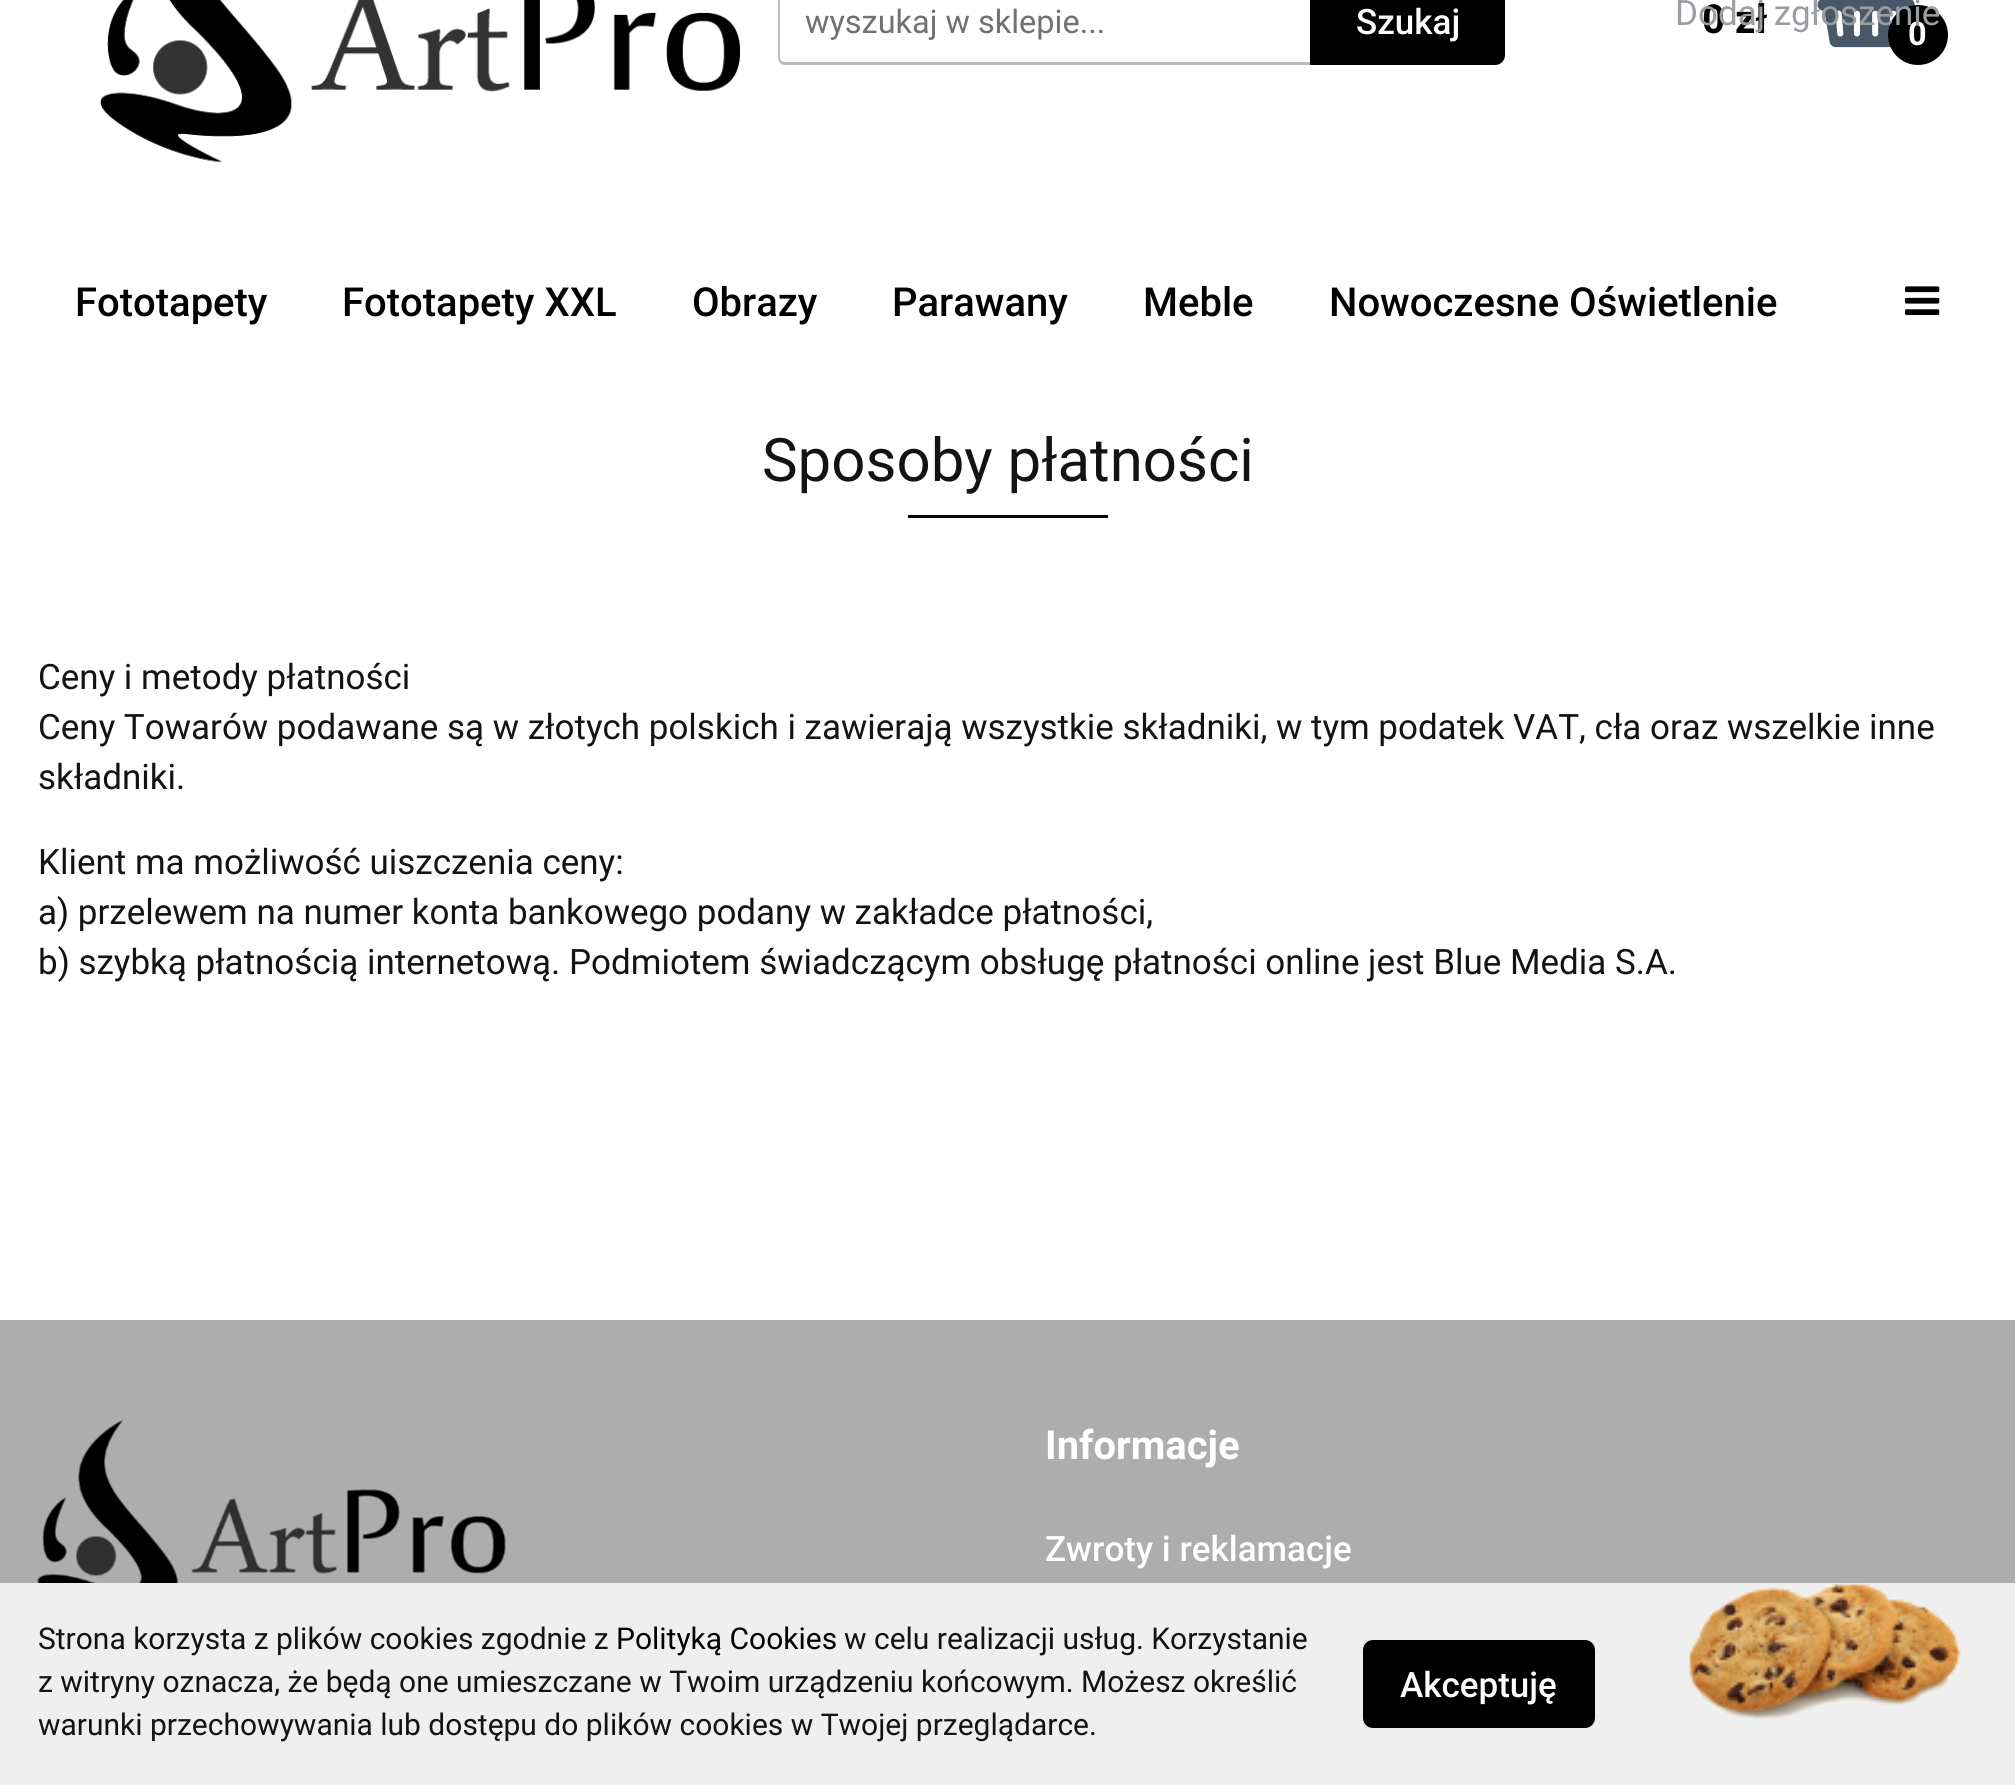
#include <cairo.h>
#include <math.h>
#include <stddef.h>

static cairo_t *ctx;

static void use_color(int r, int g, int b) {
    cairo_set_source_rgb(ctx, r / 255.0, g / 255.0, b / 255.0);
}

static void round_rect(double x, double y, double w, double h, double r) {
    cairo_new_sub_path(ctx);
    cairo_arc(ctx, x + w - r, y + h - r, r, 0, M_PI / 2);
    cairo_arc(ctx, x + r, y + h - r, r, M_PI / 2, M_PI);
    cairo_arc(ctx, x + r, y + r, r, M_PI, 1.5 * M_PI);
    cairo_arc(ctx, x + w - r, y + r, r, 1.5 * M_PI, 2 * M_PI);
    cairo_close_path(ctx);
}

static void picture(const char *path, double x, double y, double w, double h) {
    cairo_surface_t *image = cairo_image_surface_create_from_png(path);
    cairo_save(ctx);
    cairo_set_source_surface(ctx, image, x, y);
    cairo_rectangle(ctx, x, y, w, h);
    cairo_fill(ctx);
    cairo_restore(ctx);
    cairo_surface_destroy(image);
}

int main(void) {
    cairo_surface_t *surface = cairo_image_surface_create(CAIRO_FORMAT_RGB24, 2015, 1785);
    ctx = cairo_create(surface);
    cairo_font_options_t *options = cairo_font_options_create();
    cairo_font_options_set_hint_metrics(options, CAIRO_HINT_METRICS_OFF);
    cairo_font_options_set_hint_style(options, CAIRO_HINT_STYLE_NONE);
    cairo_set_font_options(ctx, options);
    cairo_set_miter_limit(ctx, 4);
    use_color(255, 255, 255);
    cairo_paint(ctx);
    cairo_select_font_face(ctx, "Roboto", CAIRO_FONT_SLANT_NORMAL, CAIRO_FONT_WEIGHT_BOLD);
    cairo_set_font_size(ctx, 40);
    use_color(0, 0, 0);
    cairo_move_to(ctx, 1702, 33);
    cairo_show_text(ctx, "0 zł");
    picture("img2.png", 1817, 0, 98, 48);
    cairo_arc(ctx, 1918, 35, 30, 0, 2 * M_PI);
    cairo_fill(ctx);
    cairo_set_font_size(ctx, 32.5);
    use_color(255, 255, 255);
    cairo_move_to(ctx, 1908, 45);
    cairo_show_text(ctx, "0");
    cairo_select_font_face(ctx, "Roboto", CAIRO_FONT_SLANT_NORMAL, CAIRO_FONT_WEIGHT_NORMAL);
    cairo_set_font_size(ctx, 35);
    use_color(154, 158, 162);
    cairo_move_to(ctx, 1675, 25);
    cairo_show_text(ctx, "Dodaj zgłoszenie");
    picture("img1.png", 100, 0, 640, 163);
    use_color(185, 188, 188);
    cairo_set_fill_rule(ctx, CAIRO_FILL_RULE_EVEN_ODD);
    cairo_new_path(ctx);
    cairo_move_to(ctx, 785, -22);
    cairo_line_to(ctx, 1310, -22);
    cairo_line_to(ctx, 1310, 65);
    cairo_line_to(ctx, 785, 65);
    cairo_curve_to(ctx, 781, 65, 778, 62, 778, 58);
    cairo_line_to(ctx, 778, -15);
    cairo_curve_to(ctx, 778, -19, 781, -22, 785, -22);
    cairo_close_path(ctx);
    cairo_move_to(ctx, 785, -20);
    cairo_line_to(ctx, 1310, -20);
    cairo_line_to(ctx, 1310, 62);
    cairo_line_to(ctx, 785, 62);
    cairo_curve_to(ctx, 782, 62, 780, 60, 780, 58);
    cairo_line_to(ctx, 780, -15);
    cairo_curve_to(ctx, 780, -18, 782, -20, 785, -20);
    cairo_close_path(ctx);
    cairo_fill(ctx);
    cairo_set_font_size(ctx, 32.5);
    use_color(113, 113, 113);
    cairo_move_to(ctx, 805, 33);
    cairo_show_text(ctx, "wyszukaj w sklepie...");
    use_color(0, 0, 0);
    cairo_new_path(ctx);
    cairo_move_to(ctx, 1314, -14);
    cairo_line_to(ctx, 1495, -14);
    cairo_curve_to(ctx, 1498.5, -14, 1501, -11.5, 1501, -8);
    cairo_line_to(ctx, 1501, 55);
    cairo_curve_to(ctx, 1501, 58.5, 1498.5, 61, 1495, 61);
    cairo_line_to(ctx, 1314, 61);
    cairo_close_path(ctx);
    cairo_fill_preserve(ctx);
    cairo_set_line_width(ctx, 8);
    cairo_stroke(ctx);
    cairo_select_font_face(ctx, "Roboto Medium", CAIRO_FONT_SLANT_NORMAL, CAIRO_FONT_WEIGHT_NORMAL);
    cairo_set_font_size(ctx, 35);
    use_color(255, 255, 255);
    cairo_move_to(ctx, 1356, 34);
    cairo_show_text(ctx, "Szukaj");
    cairo_set_font_size(ctx, 40);
    use_color(0, 0, 0);
    cairo_move_to(ctx, 75, 316);
    cairo_show_text(ctx, "Fototapety");
    cairo_move_to(ctx, 342, 316);
    cairo_show_text(ctx, "Fototapety XXL");
    cairo_move_to(ctx, 692, 316);
    cairo_show_text(ctx, "Obrazy");
    cairo_move_to(ctx, 892, 316);
    cairo_show_text(ctx, "Parawany");
    cairo_move_to(ctx, 1143, 316);
    cairo_show_text(ctx, "Meble");
    cairo_move_to(ctx, 1329, 316);
    cairo_show_text(ctx, "Nowoczesne Oświetlenie");
    picture("img3.png", 1905, 286, 35, 29);
    cairo_select_font_face(ctx, "Roboto", CAIRO_FONT_SLANT_NORMAL, CAIRO_FONT_WEIGHT_NORMAL);
    cairo_set_font_size(ctx, 60);
    use_color(19, 19, 19);
    cairo_move_to(ctx, 762, 481);
    cairo_show_text(ctx, "Sposoby płatności");
    use_color(0, 0, 0);
    cairo_rectangle(ctx, 908, 515, 200, 3);
    cairo_fill(ctx);
    cairo_set_font_size(ctx, 35);
    use_color(19, 19, 19);
    cairo_move_to(ctx, 38, 689);
    cairo_show_text(ctx, "Ceny i metody płatności");
    cairo_move_to(ctx, 38, 739);
    cairo_show_text(ctx, "Ceny Towarów podawane są w złotych polskich i zawierają wszystkie składniki, w tym podatek VAT, cła oraz wszelkie inne");
    cairo_move_to(ctx, 38, 789);
    cairo_show_text(ctx, "składniki.");
    cairo_move_to(ctx, 38, 874);
    cairo_show_text(ctx, "Klient ma możliwość uiszczenia ceny:");
    cairo_move_to(ctx, 38, 924);
    cairo_show_text(ctx, "a) przelewem na numer konta bankowego podany w zakładce płatności,");
    cairo_move_to(ctx, 38, 974);
    cairo_show_text(ctx, "b) szybką płatnością internetową. Podmiotem świadczącym obsługę płatności online jest Blue Media S.A.");
    use_color(173, 173, 173);
    cairo_rectangle(ctx, 0, 1320, 2015, 263);
    cairo_fill(ctx);
    picture("img4.png", 37, 1420, 469, 163);
    cairo_select_font_face(ctx, "Roboto", CAIRO_FONT_SLANT_NORMAL, CAIRO_FONT_WEIGHT_BOLD);
    cairo_set_font_size(ctx, 40);
    use_color(255, 255, 255);
    cairo_move_to(ctx, 1045, 1459);
    cairo_show_text(ctx, "Informacje");
    cairo_select_font_face(ctx, "Roboto Medium", CAIRO_FONT_SLANT_NORMAL, CAIRO_FONT_WEIGHT_NORMAL);
    cairo_set_font_size(ctx, 35);
    cairo_move_to(ctx, 1045, 1561);
    cairo_show_text(ctx, "Zwroty i reklamacje");
    use_color(239, 239, 239);
    cairo_rectangle(ctx, 0, 1583, 2015, 202);
    cairo_fill(ctx);
    cairo_select_font_face(ctx, "Roboto", CAIRO_FONT_SLANT_NORMAL, CAIRO_FONT_WEIGHT_NORMAL);
    cairo_set_font_size(ctx, 30);
    use_color(19, 19, 19);
    cairo_move_to(ctx, 38, 1649);
    cairo_show_text(ctx, "Strona korzysta z plików cookies zgodnie z");
    use_color(0, 0, 0);
    cairo_move_to(ctx, 616, 1649);
    cairo_show_text(ctx, "Polityką Cookies");
    use_color(19, 19, 19);
    cairo_move_to(ctx, 844, 1649);
    cairo_show_text(ctx, "w celu realizacji usług. Korzystanie");
    cairo_move_to(ctx, 38, 1692);
    cairo_show_text(ctx, "z witryny oznacza, że będą one umieszczane w Twoim urządzeniu końcowym. Możesz określić");
    cairo_move_to(ctx, 38, 1735);
    cairo_show_text(ctx, "warunki przechowywania lub dostępu do plików cookies w Twojej przeglądarce.");
    use_color(0, 0, 0);
    round_rect(1367, 1644, 224, 80, 6);
    cairo_fill_preserve(ctx);
    cairo_stroke(ctx);
    cairo_select_font_face(ctx, "Roboto Medium", CAIRO_FONT_SLANT_NORMAL, CAIRO_FONT_WEIGHT_NORMAL);
    cairo_set_font_size(ctx, 35);
    use_color(255, 255, 255);
    cairo_move_to(ctx, 1400, 1697);
    cairo_show_text(ctx, "Akceptuję");
    picture("img5.png", 1689, 1582, 272, 138);
    cairo_surface_write_to_png(surface, "result.png");
    cairo_font_options_destroy(options);
    cairo_destroy(ctx);
    cairo_surface_destroy(surface);
    return 0;
}
